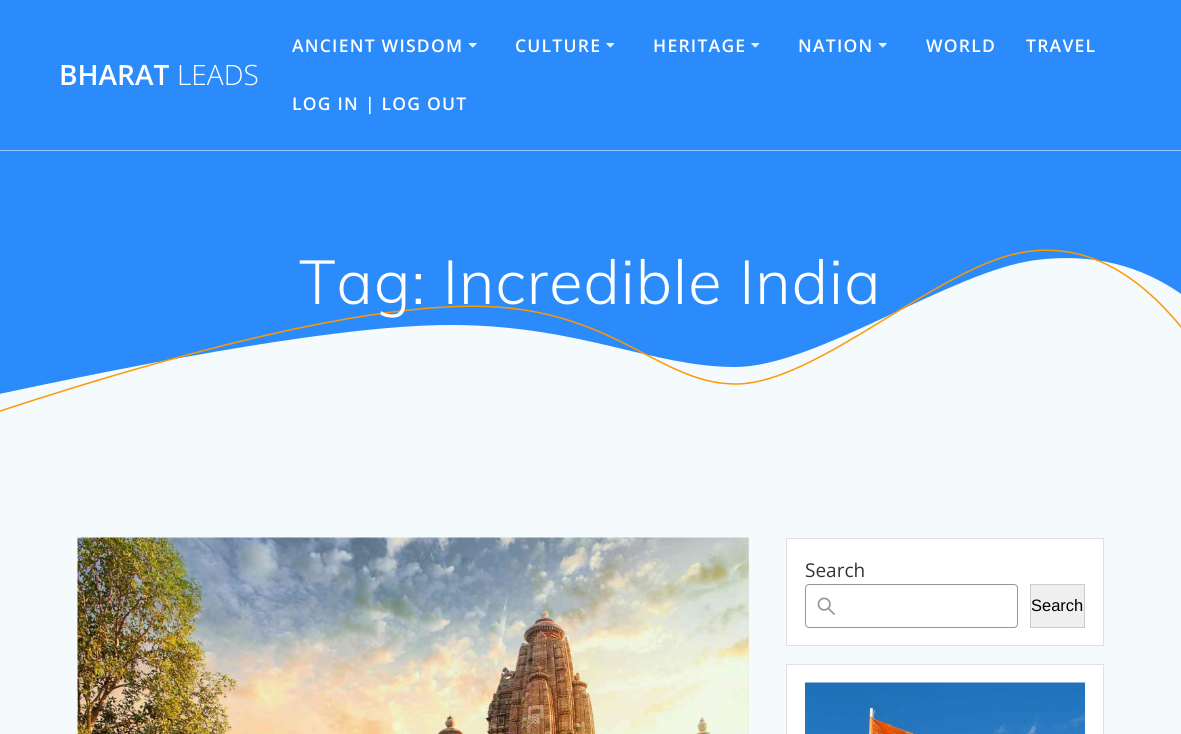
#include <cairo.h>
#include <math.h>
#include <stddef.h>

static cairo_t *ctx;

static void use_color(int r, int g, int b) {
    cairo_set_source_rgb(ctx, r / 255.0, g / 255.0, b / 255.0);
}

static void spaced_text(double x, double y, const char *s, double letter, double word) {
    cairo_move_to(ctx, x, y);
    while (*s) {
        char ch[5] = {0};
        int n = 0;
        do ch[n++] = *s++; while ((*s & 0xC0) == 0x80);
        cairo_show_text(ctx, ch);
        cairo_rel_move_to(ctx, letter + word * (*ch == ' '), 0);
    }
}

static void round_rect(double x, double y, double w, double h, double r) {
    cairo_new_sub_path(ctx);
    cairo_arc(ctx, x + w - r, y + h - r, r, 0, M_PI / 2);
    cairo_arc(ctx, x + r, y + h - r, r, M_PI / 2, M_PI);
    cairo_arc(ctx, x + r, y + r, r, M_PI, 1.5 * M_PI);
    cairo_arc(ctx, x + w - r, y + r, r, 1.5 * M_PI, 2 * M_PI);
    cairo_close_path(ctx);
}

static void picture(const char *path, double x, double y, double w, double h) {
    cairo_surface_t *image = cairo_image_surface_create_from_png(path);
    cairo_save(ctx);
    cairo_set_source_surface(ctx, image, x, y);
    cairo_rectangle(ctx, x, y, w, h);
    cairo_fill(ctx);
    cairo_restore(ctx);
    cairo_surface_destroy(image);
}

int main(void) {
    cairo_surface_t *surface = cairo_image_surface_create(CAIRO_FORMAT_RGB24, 1181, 734);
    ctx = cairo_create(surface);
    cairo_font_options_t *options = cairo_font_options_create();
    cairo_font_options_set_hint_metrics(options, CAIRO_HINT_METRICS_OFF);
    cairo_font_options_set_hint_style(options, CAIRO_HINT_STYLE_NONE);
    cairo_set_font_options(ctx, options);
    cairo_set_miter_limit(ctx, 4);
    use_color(44, 139, 251);
    cairo_paint(ctx);
    use_color(150, 197, 253);
    cairo_rectangle(ctx, 0, 150, 1181, 1);
    cairo_fill(ctx);
    cairo_select_font_face(ctx, "Open Sans SemiBold", CAIRO_FONT_SLANT_NORMAL, CAIRO_FONT_WEIGHT_NORMAL);
    cairo_set_font_size(ctx, 28);
    use_color(255, 255, 255);
    cairo_move_to(ctx, 59, 85);
    cairo_show_text(ctx, "BHARAT");
    cairo_select_font_face(ctx, "Open Sans Light", CAIRO_FONT_SLANT_NORMAL, CAIRO_FONT_WEIGHT_NORMAL);
    cairo_move_to(ctx, 177, 85);
    cairo_show_text(ctx, "LEADS");
    cairo_select_font_face(ctx, "Open Sans SemiBold", CAIRO_FONT_SLANT_NORMAL, CAIRO_FONT_WEIGHT_NORMAL);
    cairo_set_font_size(ctx, 17.5);
    spaced_text(292, 52, "ANCIENT WISDOM", 1.25, 0);
    picture("img1.png", 468, 43, 9, 5);
    spaced_text(515, 52, "CULTURE", 1.25, 0);
    picture("img2.png", 606, 43, 9, 5);
    spaced_text(653, 52, "HERITAGE", 1.25, 0);
    picture("img2.png", 751, 43, 9, 5);
    spaced_text(798, 52, "NATION", 1.25, 0);
    picture("img1.png", 878, 43, 9, 5);
    spaced_text(926, 52, "WORLD", 1.25, 0);
    spaced_text(1026, 52, "TRAVEL", 1.25, 0);
    spaced_text(292, 110, "LOG IN | LOG OUT", 1.25, 0);
    use_color(245, 250, 253);
    cairo_new_path(ctx);
    cairo_move_to(ctx, -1, 394);
    cairo_curve_to(ctx, 219, 347, 371, 324, 455, 325);
    cairo_curve_to(ctx, 581, 326, 653, 367, 735, 367);
    cairo_curve_to(ctx, 816, 367, 951, 271, 1036, 260);
    cairo_curve_to(ctx, 1092, 253, 1141, 265, 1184, 296);
    cairo_line_to(ctx, 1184, 435);
    cairo_line_to(ctx, -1, 437);
    cairo_close_path(ctx);
    cairo_fill(ctx);
    cairo_new_path(ctx);
    cairo_move_to(ctx, -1.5, 411.5);
    cairo_curve_to(ctx, 201.5, 345, 354.5, 310, 457, 306.5);
    cairo_curve_to(ctx, 610.5, 300.5, 654.5, 384, 736, 384);
    cairo_curve_to(ctx, 817.5, 384, 943, 262, 1028, 251.5);
    cairo_curve_to(ctx, 1084.5, 244, 1136, 270.5, 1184, 330.5);
    use_color(255, 152, 0);
    cairo_set_line_width(ctx, 1.5);
    cairo_stroke(ctx);
    cairo_select_font_face(ctx, "Muli Light", CAIRO_FONT_SLANT_NORMAL, CAIRO_FONT_WEIGHT_NORMAL);
    cairo_set_font_size(ctx, 61.25);
    use_color(255, 255, 255);
    spaced_text(299, 304, "Tag: Incredible India", 1.1, 0);
    use_color(245, 250, 253);
    cairo_rectangle(ctx, 0, 435, 1181, 299);
    cairo_fill(ctx);
    cairo_rectangle(ctx, 78.5, 538.5, 670, 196);
    use_color(224, 225, 225);
    cairo_set_line_width(ctx, 1);
    cairo_stroke(ctx);
    picture("img3.png", 77, 537, 672, 197);
    use_color(255, 255, 255);
    cairo_rectangle(ctx, 786.5, 538.5, 317, 107);
    cairo_fill_preserve(ctx);
    use_color(224, 225, 225);
    cairo_stroke(ctx);
    cairo_select_font_face(ctx, "Open Sans", CAIRO_FONT_SLANT_NORMAL, CAIRO_FONT_WEIGHT_NORMAL);
    cairo_set_font_size(ctx, 19);
    use_color(49, 52, 57);
    cairo_move_to(ctx, 805, 577);
    cairo_show_text(ctx, "Search");
    picture("img4.png", 817, 597, 18, 18);
    round_rect(805.5, 584.5, 212, 43, 3.5);
    use_color(148, 148, 148);
    cairo_stroke(ctx);
    use_color(239, 239, 239);
    cairo_rectangle(ctx, 1030.5, 584.5, 54, 43);
    cairo_fill_preserve(ctx);
    use_color(204, 204, 204);
    cairo_stroke(ctx);
    cairo_select_font_face(ctx, "Liberation Sans", CAIRO_FONT_SLANT_NORMAL, CAIRO_FONT_WEIGHT_NORMAL);
    cairo_set_font_size(ctx, 16.5);
    use_color(0, 0, 0);
    cairo_move_to(ctx, 1031, 611);
    cairo_show_text(ctx, "Search");
    use_color(255, 255, 255);
    cairo_rectangle(ctx, 786.5, 664.5, 317, 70);
    cairo_fill_preserve(ctx);
    use_color(224, 225, 225);
    cairo_stroke(ctx);
    picture("img5.png", 805, 682, 280, 52);
    cairo_surface_write_to_png(surface, "result.png");
    cairo_font_options_destroy(options);
    cairo_destroy(ctx);
    cairo_surface_destroy(surface);
    return 0;
}
